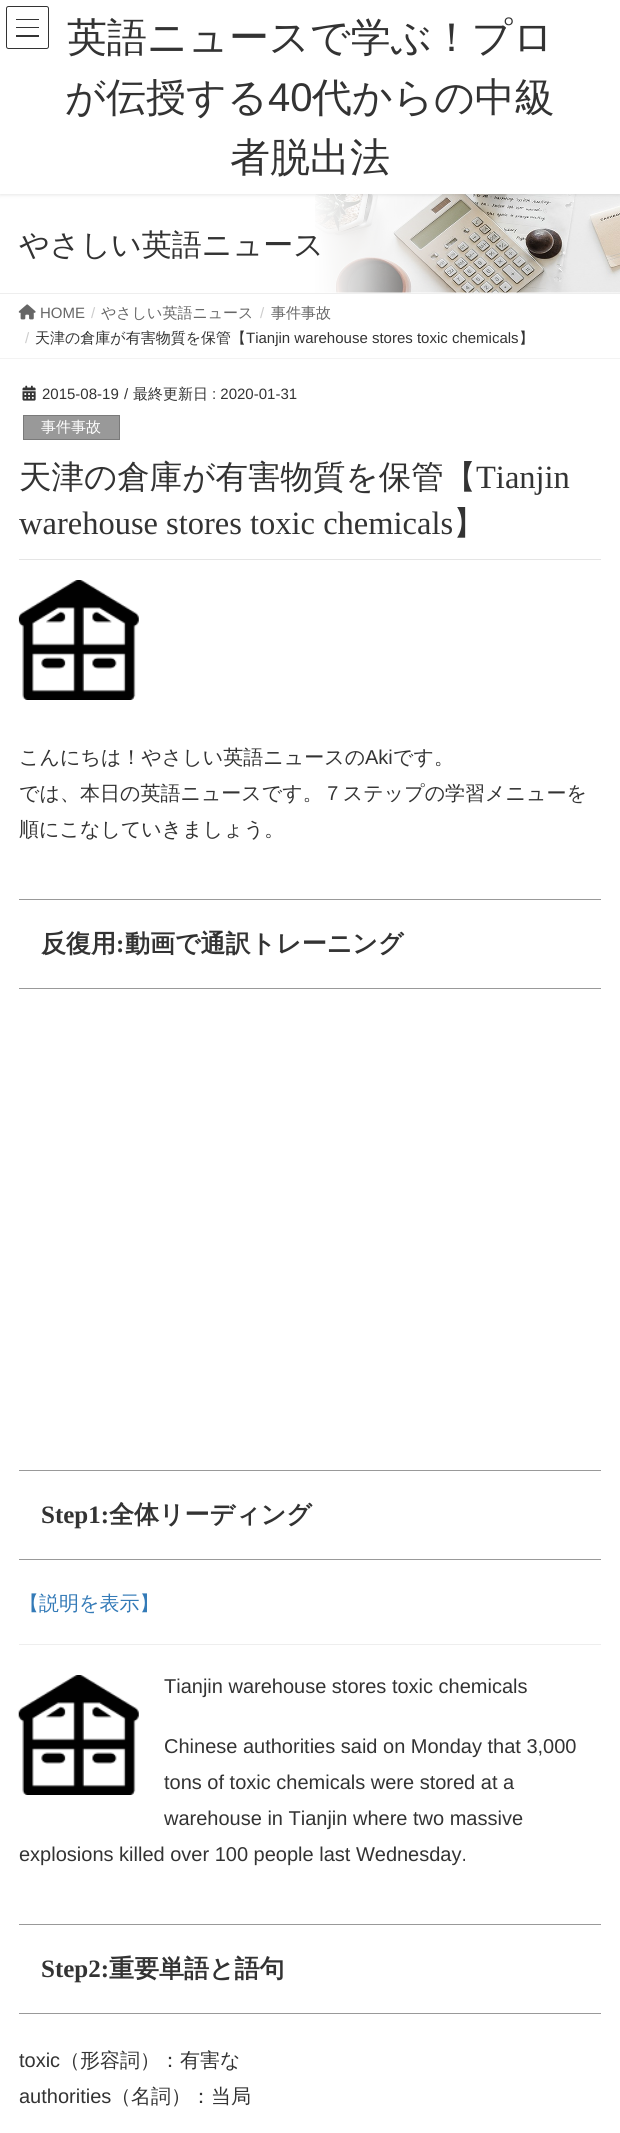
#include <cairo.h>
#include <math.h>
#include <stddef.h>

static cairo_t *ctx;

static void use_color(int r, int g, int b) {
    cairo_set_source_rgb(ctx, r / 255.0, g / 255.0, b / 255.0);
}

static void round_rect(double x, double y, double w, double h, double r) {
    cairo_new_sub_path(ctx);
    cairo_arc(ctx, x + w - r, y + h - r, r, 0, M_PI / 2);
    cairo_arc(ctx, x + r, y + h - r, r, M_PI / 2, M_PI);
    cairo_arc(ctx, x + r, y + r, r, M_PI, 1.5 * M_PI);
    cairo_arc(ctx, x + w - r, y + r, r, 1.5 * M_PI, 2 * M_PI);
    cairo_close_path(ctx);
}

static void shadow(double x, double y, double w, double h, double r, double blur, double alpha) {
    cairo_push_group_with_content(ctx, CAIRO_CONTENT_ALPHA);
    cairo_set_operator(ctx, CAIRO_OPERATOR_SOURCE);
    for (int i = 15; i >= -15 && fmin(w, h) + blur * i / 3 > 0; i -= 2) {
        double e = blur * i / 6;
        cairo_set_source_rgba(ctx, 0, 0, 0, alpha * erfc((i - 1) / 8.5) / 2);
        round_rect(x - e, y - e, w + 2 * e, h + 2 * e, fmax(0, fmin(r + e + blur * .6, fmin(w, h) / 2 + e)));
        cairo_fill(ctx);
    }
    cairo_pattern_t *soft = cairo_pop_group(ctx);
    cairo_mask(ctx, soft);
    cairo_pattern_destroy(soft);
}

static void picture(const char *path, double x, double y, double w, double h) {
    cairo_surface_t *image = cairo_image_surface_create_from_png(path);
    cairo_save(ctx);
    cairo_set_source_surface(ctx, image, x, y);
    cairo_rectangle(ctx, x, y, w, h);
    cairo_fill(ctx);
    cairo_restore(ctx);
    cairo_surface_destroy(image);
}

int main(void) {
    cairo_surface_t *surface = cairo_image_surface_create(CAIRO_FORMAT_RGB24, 620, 2133);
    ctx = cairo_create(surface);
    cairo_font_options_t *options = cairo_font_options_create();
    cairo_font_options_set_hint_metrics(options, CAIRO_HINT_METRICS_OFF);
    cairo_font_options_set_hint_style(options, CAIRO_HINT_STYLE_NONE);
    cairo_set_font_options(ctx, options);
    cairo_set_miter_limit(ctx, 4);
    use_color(255, 255, 255);
    cairo_paint(ctx);
    picture("img1.png", 315, 194, 305, 99);
    use_color(0, 0, 0);
    shadow(0, 1, 620, 194, 0, 2, 0.1);
    use_color(255, 255, 255);
    cairo_rectangle(ctx, 0, 0, 620, 194);
    cairo_fill(ctx);
    use_color(51, 51, 51);
    cairo_rectangle(ctx, 16, 19, 23, 1);
    cairo_fill(ctx);
    cairo_rectangle(ctx, 16, 27, 23, 1);
    cairo_fill(ctx);
    cairo_rectangle(ctx, 16, 35, 23, 2);
    cairo_fill(ctx);
    round_rect(6.5, 6.5, 42, 42, 2);
    cairo_set_line_width(ctx, 1);
    cairo_stroke(ctx);
    cairo_select_font_face(ctx, "WenQuanYi Zen Hei Medium", CAIRO_FONT_SLANT_NORMAL, CAIRO_FONT_WEIGHT_NORMAL);
    cairo_set_font_size(ctx, 40);
    cairo_move_to(ctx, 67, 51);
    cairo_show_text(ctx, "英語ニュースで学ぶ！プロ");
    cairo_move_to(ctx, 65, 111);
    cairo_show_text(ctx, "が伝授する");
    cairo_select_font_face(ctx, "Liberation Sans", CAIRO_FONT_SLANT_NORMAL, CAIRO_FONT_WEIGHT_NORMAL);
    cairo_move_to(ctx, 268, 111);
    cairo_show_text(ctx, "40");
    cairo_select_font_face(ctx, "WenQuanYi Zen Hei Medium", CAIRO_FONT_SLANT_NORMAL, CAIRO_FONT_WEIGHT_NORMAL);
    cairo_move_to(ctx, 312, 111);
    cairo_show_text(ctx, "代からの中級");
    cairo_move_to(ctx, 230, 171);
    cairo_show_text(ctx, "者脱出法");
    use_color(238, 238, 238);
    cairo_rectangle(ctx, 0, 293, 620, 1);
    cairo_fill(ctx);
    cairo_set_font_size(ctx, 30);
    use_color(51, 51, 51);
    cairo_move_to(ctx, 19, 255);
    cairo_show_text(ctx, "やさしい英語ニュース");
    use_color(243, 243, 243);
    cairo_rectangle(ctx, 0, 358, 620, 1);
    cairo_fill(ctx);
    picture("img2.png", 18, 304, 18, 16);
    cairo_select_font_face(ctx, "Liberation Sans", CAIRO_FONT_SLANT_NORMAL, CAIRO_FONT_WEIGHT_NORMAL);
    cairo_set_font_size(ctx, 15);
    use_color(102, 102, 102);
    cairo_move_to(ctx, 40, 318);
    cairo_show_text(ctx, "HOME");
    use_color(204, 204, 204);
    cairo_move_to(ctx, 91, 318);
    cairo_show_text(ctx, "/");
    cairo_select_font_face(ctx, "WenQuanYi Zen Hei Medium", CAIRO_FONT_SLANT_NORMAL, CAIRO_FONT_WEIGHT_NORMAL);
    use_color(102, 102, 102);
    cairo_move_to(ctx, 101, 318);
    cairo_show_text(ctx, "やさしい英語ニュース");
    cairo_select_font_face(ctx, "Liberation Sans", CAIRO_FONT_SLANT_NORMAL, CAIRO_FONT_WEIGHT_NORMAL);
    use_color(204, 204, 204);
    cairo_move_to(ctx, 260, 318);
    cairo_show_text(ctx, "/");
    cairo_select_font_face(ctx, "WenQuanYi Zen Hei Medium", CAIRO_FONT_SLANT_NORMAL, CAIRO_FONT_WEIGHT_NORMAL);
    use_color(102, 102, 102);
    cairo_move_to(ctx, 271, 318);
    cairo_show_text(ctx, "事件事故");
    cairo_select_font_face(ctx, "Liberation Sans", CAIRO_FONT_SLANT_NORMAL, CAIRO_FONT_WEIGHT_NORMAL);
    use_color(204, 204, 204);
    cairo_move_to(ctx, 25, 343);
    cairo_show_text(ctx, "/");
    cairo_select_font_face(ctx, "WenQuanYi Zen Hei Medium", CAIRO_FONT_SLANT_NORMAL, CAIRO_FONT_WEIGHT_NORMAL);
    use_color(51, 51, 51);
    cairo_move_to(ctx, 35, 343);
    cairo_show_text(ctx, "天津の倉庫が有害物質を保管【");
    cairo_select_font_face(ctx, "Liberation Sans", CAIRO_FONT_SLANT_NORMAL, CAIRO_FONT_WEIGHT_NORMAL);
    cairo_move_to(ctx, 246, 343);
    cairo_show_text(ctx, "Tianjin warehouse stores toxic chemicals");
    cairo_select_font_face(ctx, "WenQuanYi Zen Hei Medium", CAIRO_FONT_SLANT_NORMAL, CAIRO_FONT_WEIGHT_NORMAL);
    cairo_move_to(ctx, 519, 343);
    cairo_show_text(ctx, "】");
    use_color(229, 229, 229);
    cairo_rectangle(ctx, 19, 559, 582, 1);
    cairo_fill(ctx);
    picture("img3.png", 22, 385, 14, 16);
    cairo_select_font_face(ctx, "Liberation Sans", CAIRO_FONT_SLANT_NORMAL, CAIRO_FONT_WEIGHT_NORMAL);
    use_color(51, 51, 51);
    cairo_move_to(ctx, 42, 399);
    cairo_show_text(ctx, "2015-08-19");
    cairo_move_to(ctx, 124, 399);
    cairo_show_text(ctx, "/");
    cairo_select_font_face(ctx, "WenQuanYi Zen Hei Medium", CAIRO_FONT_SLANT_NORMAL, CAIRO_FONT_WEIGHT_NORMAL);
    cairo_move_to(ctx, 133, 399);
    cairo_show_text(ctx, "最終更新日");
    cairo_select_font_face(ctx, "Liberation Sans", CAIRO_FONT_SLANT_NORMAL, CAIRO_FONT_WEIGHT_NORMAL);
    cairo_move_to(ctx, 212, 399);
    cairo_show_text(ctx, ": 2020-01-31");
    use_color(153, 153, 153);
    cairo_rectangle(ctx, 23.5, 415.5, 96, 24);
    cairo_fill_preserve(ctx);
    use_color(122, 122, 122);
    cairo_stroke(ctx);
    cairo_select_font_face(ctx, "WenQuanYi Zen Hei Medium", CAIRO_FONT_SLANT_NORMAL, CAIRO_FONT_WEIGHT_NORMAL);
    use_color(255, 255, 255);
    cairo_move_to(ctx, 41, 432);
    cairo_show_text(ctx, "事件事故");
    cairo_set_font_size(ctx, 32.5);
    use_color(51, 51, 51);
    cairo_move_to(ctx, 19, 488);
    cairo_show_text(ctx, "天津の倉庫が有害物質を保管【");
    cairo_select_font_face(ctx, "Liberation Serif", CAIRO_FONT_SLANT_NORMAL, CAIRO_FONT_WEIGHT_NORMAL);
    cairo_move_to(ctx, 476, 488);
    cairo_show_text(ctx, "Tianjin");
    cairo_move_to(ctx, 19, 534);
    cairo_show_text(ctx, "warehouse stores toxic chemicals");
    cairo_select_font_face(ctx, "WenQuanYi Zen Hei Medium", CAIRO_FONT_SLANT_NORMAL, CAIRO_FONT_WEIGHT_NORMAL);
    cairo_move_to(ctx, 453, 534);
    cairo_show_text(ctx, "】");
    picture("img4.png", 18, 580, 121, 120);
    cairo_set_font_size(ctx, 20);
    cairo_move_to(ctx, 19, 764);
    cairo_show_text(ctx, "こんにちは！やさしい英語ニュースの");
    cairo_select_font_face(ctx, "Liberation Sans", CAIRO_FONT_SLANT_NORMAL, CAIRO_FONT_WEIGHT_NORMAL);
    cairo_move_to(ctx, 365, 764);
    cairo_show_text(ctx, "Aki");
    cairo_select_font_face(ctx, "WenQuanYi Zen Hei Medium", CAIRO_FONT_SLANT_NORMAL, CAIRO_FONT_WEIGHT_NORMAL);
    cairo_move_to(ctx, 393, 764);
    cairo_show_text(ctx, "です。");
    cairo_move_to(ctx, 19, 800);
    cairo_show_text(ctx, "では、本日の英語ニュースです。７ステップの学習メニューを");
    cairo_move_to(ctx, 19, 836);
    cairo_show_text(ctx, "順にこなしていきましょう。");
    use_color(153, 153, 153);
    cairo_rectangle(ctx, 19, 899, 582, 1);
    cairo_fill(ctx);
    cairo_rectangle(ctx, 19, 988, 582, 1);
    cairo_fill(ctx);
    cairo_select_font_face(ctx, "WenQuanYi Zen Hei", CAIRO_FONT_SLANT_NORMAL, CAIRO_FONT_WEIGHT_BOLD);
    cairo_set_font_size(ctx, 25);
    use_color(51, 51, 51);
    cairo_move_to(ctx, 41, 952);
    cairo_show_text(ctx, "反復用");
    cairo_select_font_face(ctx, "Liberation Serif", CAIRO_FONT_SLANT_NORMAL, CAIRO_FONT_WEIGHT_BOLD);
    cairo_move_to(ctx, 116, 952);
    cairo_show_text(ctx, ":");
    cairo_select_font_face(ctx, "WenQuanYi Zen Hei", CAIRO_FONT_SLANT_NORMAL, CAIRO_FONT_WEIGHT_BOLD);
    cairo_move_to(ctx, 125, 952);
    cairo_show_text(ctx, "動画で通訳トレーニング");
    use_color(153, 153, 153);
    cairo_rectangle(ctx, 19, 1470, 582, 1);
    cairo_fill(ctx);
    cairo_rectangle(ctx, 19, 1559, 582, 1);
    cairo_fill(ctx);
    cairo_select_font_face(ctx, "Liberation Serif", CAIRO_FONT_SLANT_NORMAL, CAIRO_FONT_WEIGHT_BOLD);
    use_color(51, 51, 51);
    cairo_move_to(ctx, 41, 1523);
    cairo_show_text(ctx, "Step1:");
    cairo_select_font_face(ctx, "WenQuanYi Zen Hei", CAIRO_FONT_SLANT_NORMAL, CAIRO_FONT_WEIGHT_BOLD);
    cairo_move_to(ctx, 109, 1523);
    cairo_show_text(ctx, "全体リーディング");
    cairo_select_font_face(ctx, "WenQuanYi Zen Hei Medium", CAIRO_FONT_SLANT_NORMAL, CAIRO_FONT_WEIGHT_NORMAL);
    cairo_set_font_size(ctx, 20);
    use_color(51, 122, 183);
    cairo_move_to(ctx, 19, 1610);
    cairo_show_text(ctx, "【説明を表示】");
    use_color(238, 238, 238);
    cairo_rectangle(ctx, 19, 1644, 582, 1);
    cairo_fill(ctx);
    picture("img5.png", 18, 1675, 121, 120);
    cairo_select_font_face(ctx, "Liberation Sans", CAIRO_FONT_SLANT_NORMAL, CAIRO_FONT_WEIGHT_NORMAL);
    use_color(51, 51, 51);
    cairo_move_to(ctx, 164, 1693);
    cairo_show_text(ctx, "Tianjin warehouse stores toxic chemicals");
    cairo_move_to(ctx, 164, 1753);
    cairo_show_text(ctx, "Chinese authorities said on Monday that 3,000");
    cairo_move_to(ctx, 164, 1789);
    cairo_show_text(ctx, "tons of toxic chemicals were stored at a");
    cairo_move_to(ctx, 164, 1825);
    cairo_show_text(ctx, "warehouse in Tianjin where two massive");
    cairo_move_to(ctx, 19, 1861);
    cairo_show_text(ctx, "explosions killed over 100 people last Wednesday.");
    use_color(153, 153, 153);
    cairo_rectangle(ctx, 19, 1924, 582, 1);
    cairo_fill(ctx);
    cairo_rectangle(ctx, 19, 2013, 582, 1);
    cairo_fill(ctx);
    cairo_select_font_face(ctx, "Liberation Serif", CAIRO_FONT_SLANT_NORMAL, CAIRO_FONT_WEIGHT_BOLD);
    cairo_set_font_size(ctx, 25);
    use_color(51, 51, 51);
    cairo_move_to(ctx, 41, 1977);
    cairo_show_text(ctx, "Step2:");
    cairo_select_font_face(ctx, "WenQuanYi Zen Hei", CAIRO_FONT_SLANT_NORMAL, CAIRO_FONT_WEIGHT_BOLD);
    cairo_move_to(ctx, 109, 1977);
    cairo_show_text(ctx, "重要単語と語句");
    cairo_select_font_face(ctx, "Liberation Sans", CAIRO_FONT_SLANT_NORMAL, CAIRO_FONT_WEIGHT_NORMAL);
    cairo_set_font_size(ctx, 20);
    cairo_move_to(ctx, 19, 2067);
    cairo_show_text(ctx, "toxic");
    cairo_select_font_face(ctx, "WenQuanYi Zen Hei Medium", CAIRO_FONT_SLANT_NORMAL, CAIRO_FONT_WEIGHT_NORMAL);
    cairo_move_to(ctx, 60, 2067);
    cairo_show_text(ctx, "（形容詞）：有害な");
    cairo_select_font_face(ctx, "Liberation Sans", CAIRO_FONT_SLANT_NORMAL, CAIRO_FONT_WEIGHT_NORMAL);
    cairo_move_to(ctx, 19, 2103);
    cairo_show_text(ctx, "authorities");
    cairo_select_font_face(ctx, "WenQuanYi Zen Hei Medium", CAIRO_FONT_SLANT_NORMAL, CAIRO_FONT_WEIGHT_NORMAL);
    cairo_move_to(ctx, 111, 2103);
    cairo_show_text(ctx, "（名詞）：当局");
    cairo_surface_write_to_png(surface, "result.png");
    cairo_font_options_destroy(options);
    cairo_destroy(ctx);
    cairo_surface_destroy(surface);
    return 0;
}
